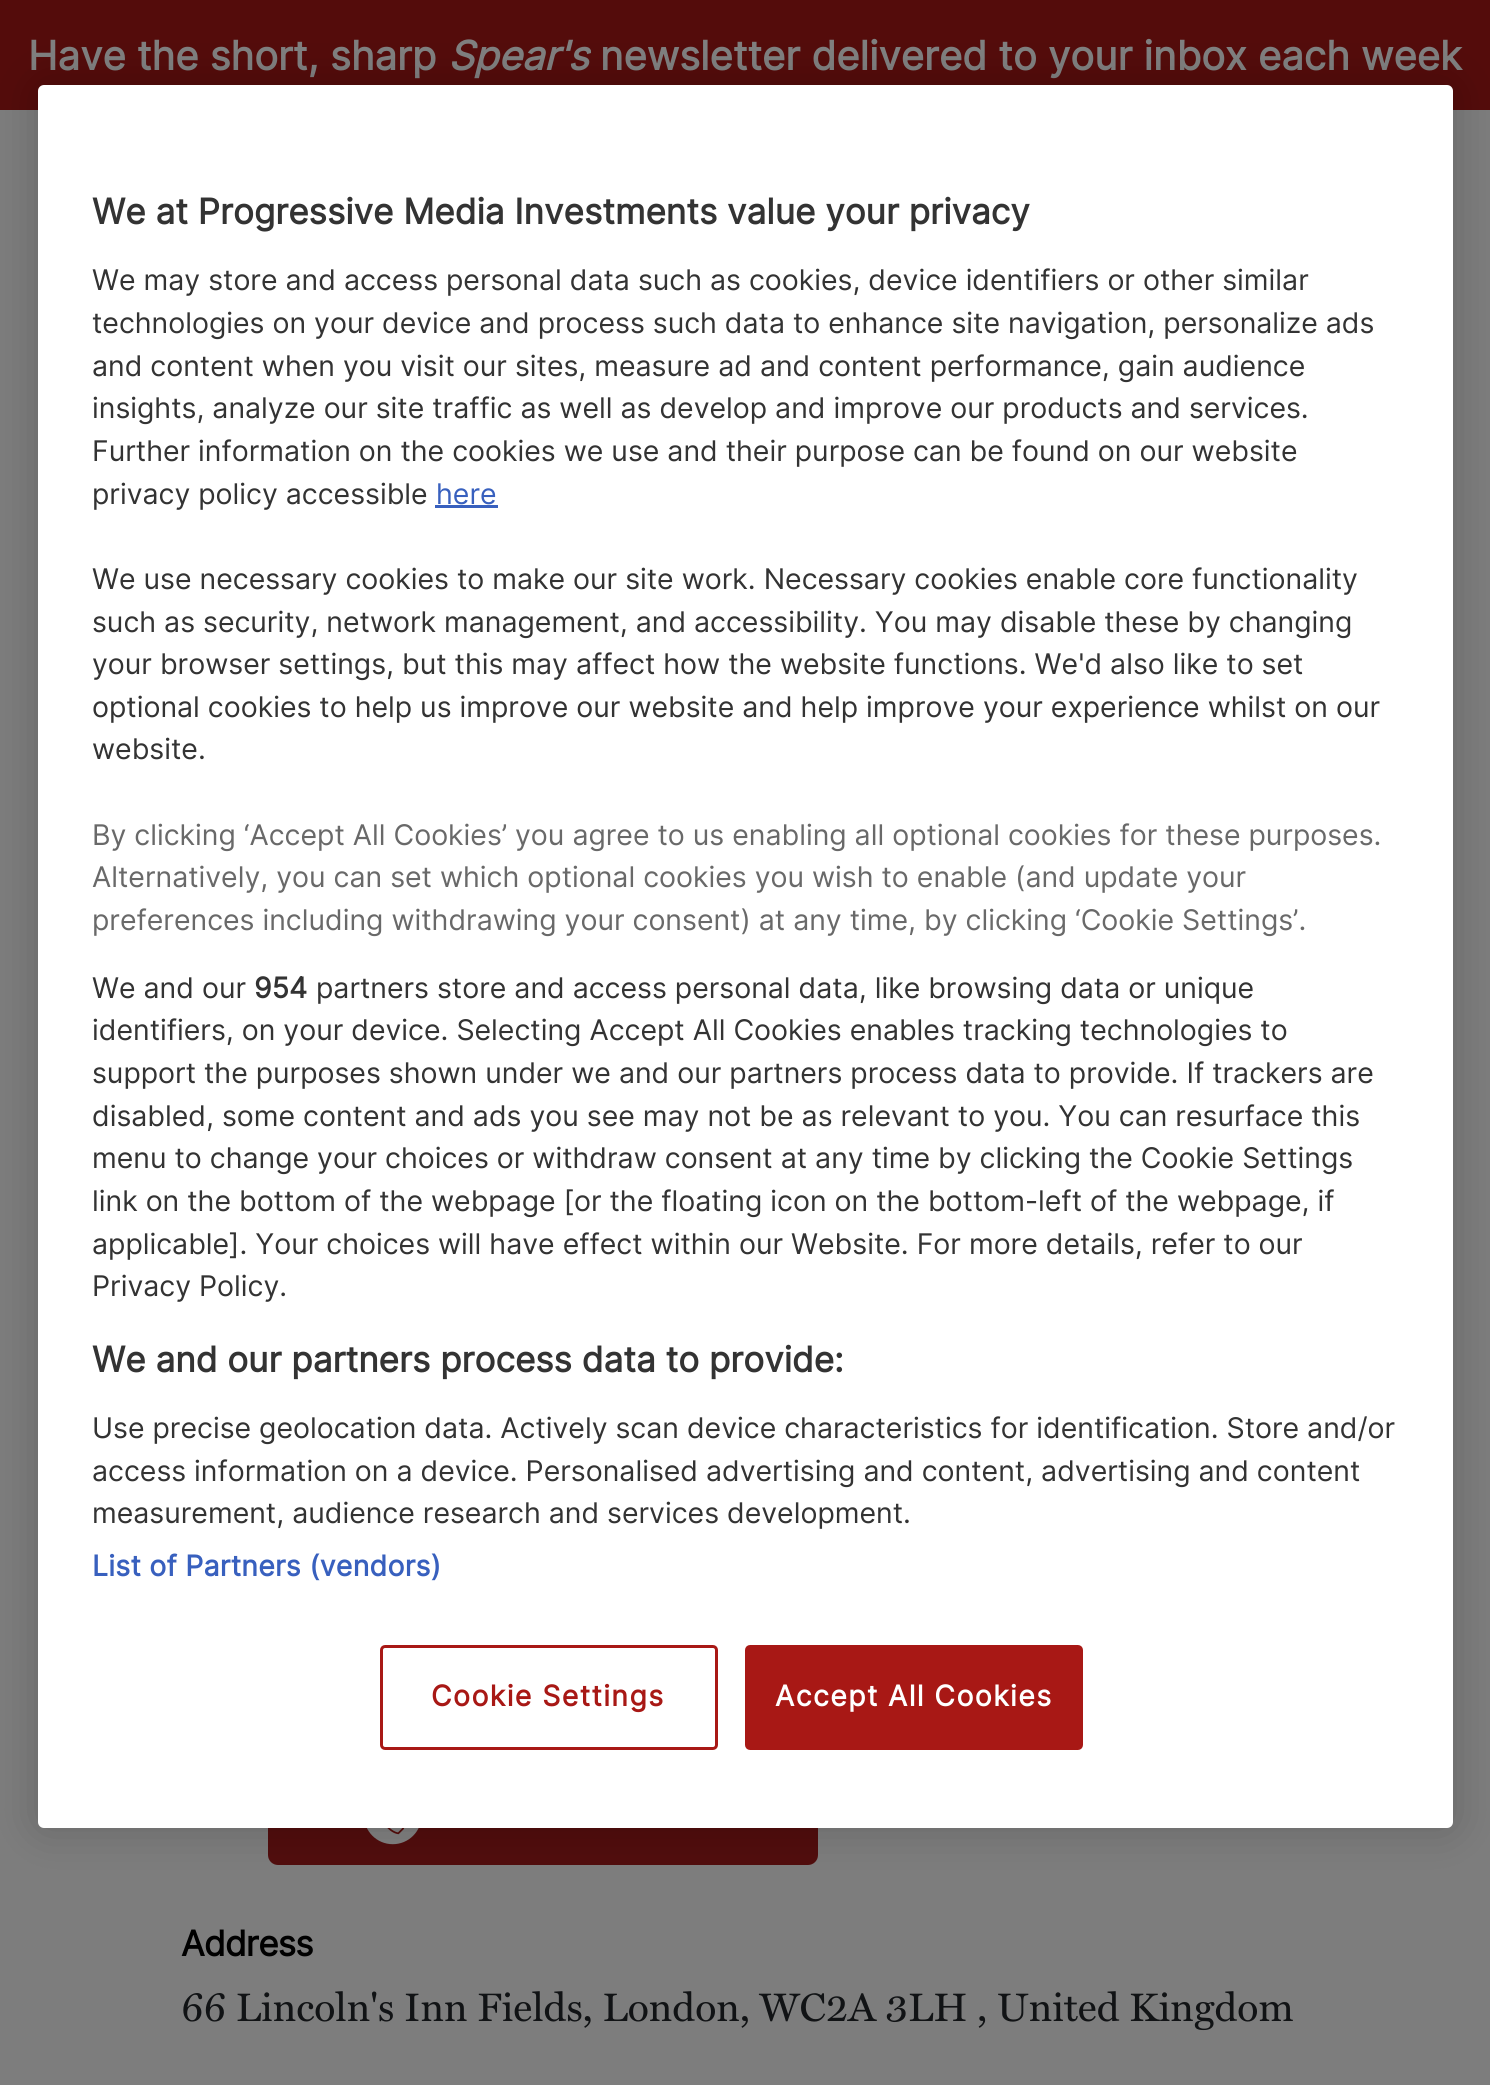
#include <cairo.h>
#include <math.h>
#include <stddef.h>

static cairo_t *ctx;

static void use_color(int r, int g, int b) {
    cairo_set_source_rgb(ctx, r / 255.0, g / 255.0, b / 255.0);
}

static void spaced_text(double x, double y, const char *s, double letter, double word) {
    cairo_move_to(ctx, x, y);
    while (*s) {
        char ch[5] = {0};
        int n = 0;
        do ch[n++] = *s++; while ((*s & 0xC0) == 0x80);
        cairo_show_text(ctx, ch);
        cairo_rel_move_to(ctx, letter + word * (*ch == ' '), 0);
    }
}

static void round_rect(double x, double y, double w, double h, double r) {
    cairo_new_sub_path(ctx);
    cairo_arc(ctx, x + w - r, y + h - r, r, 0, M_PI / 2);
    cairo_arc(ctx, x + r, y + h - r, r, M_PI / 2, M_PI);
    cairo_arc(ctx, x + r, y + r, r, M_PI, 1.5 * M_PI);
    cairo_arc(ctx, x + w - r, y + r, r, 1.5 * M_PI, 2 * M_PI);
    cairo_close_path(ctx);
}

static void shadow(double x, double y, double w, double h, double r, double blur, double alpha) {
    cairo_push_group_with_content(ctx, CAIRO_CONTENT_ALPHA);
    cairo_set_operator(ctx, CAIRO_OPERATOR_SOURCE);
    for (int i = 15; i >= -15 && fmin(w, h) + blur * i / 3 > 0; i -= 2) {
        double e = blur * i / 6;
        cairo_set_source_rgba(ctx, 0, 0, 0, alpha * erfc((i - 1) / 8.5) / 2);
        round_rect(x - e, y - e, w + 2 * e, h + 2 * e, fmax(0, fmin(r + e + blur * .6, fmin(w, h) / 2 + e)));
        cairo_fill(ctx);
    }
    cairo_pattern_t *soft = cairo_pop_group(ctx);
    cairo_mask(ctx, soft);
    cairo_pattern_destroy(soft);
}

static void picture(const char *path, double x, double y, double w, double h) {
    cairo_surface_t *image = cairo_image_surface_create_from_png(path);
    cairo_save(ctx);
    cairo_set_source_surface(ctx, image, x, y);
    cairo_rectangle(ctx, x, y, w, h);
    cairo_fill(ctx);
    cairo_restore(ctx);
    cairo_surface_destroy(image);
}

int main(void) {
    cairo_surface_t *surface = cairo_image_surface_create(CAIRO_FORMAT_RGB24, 1490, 2085);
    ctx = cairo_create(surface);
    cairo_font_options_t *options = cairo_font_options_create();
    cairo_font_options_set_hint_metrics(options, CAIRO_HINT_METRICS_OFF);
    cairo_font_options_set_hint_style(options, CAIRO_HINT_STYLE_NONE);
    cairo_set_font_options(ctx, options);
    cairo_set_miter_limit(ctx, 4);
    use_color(84, 12, 11);
    cairo_paint(ctx);
    cairo_select_font_face(ctx, "Inter", CAIRO_FONT_SLANT_NORMAL, CAIRO_FONT_WEIGHT_BOLD);
    cairo_set_font_size(ctx, 40);
    use_color(128, 128, 128);
    cairo_move_to(ctx, 28, 70);
    cairo_show_text(ctx, "Have the short, sharp");
    cairo_select_font_face(ctx, "Inter", CAIRO_FONT_SLANT_ITALIC, CAIRO_FONT_WEIGHT_BOLD);
    cairo_move_to(ctx, 448, 70);
    cairo_show_text(ctx, "Spear's");
    cairo_select_font_face(ctx, "Inter", CAIRO_FONT_SLANT_NORMAL, CAIRO_FONT_WEIGHT_BOLD);
    cairo_move_to(ctx, 600, 70);
    cairo_show_text(ctx, "newsletter delivered to your inbox each week");
    use_color(125, 125, 125);
    cairo_rectangle(ctx, 0, 110, 1490, 1975);
    cairo_fill(ctx);
    use_color(81, 13, 13);
    round_rect(268, 1765, 550, 100, 10);
    cairo_fill(ctx);
    picture("img1.png", 367, 1828, 52, 17);
    use_color(0, 0, 0);
    shadow(38, 85, 1415, 1743, 6, 22.5, 0.2);
    use_color(255, 255, 255);
    round_rect(38, 85, 1415, 1743, 6);
    cairo_fill(ctx);
    cairo_set_font_size(ctx, 35);
    use_color(51, 51, 51);
    cairo_move_to(ctx, 92, 224);
    cairo_show_text(ctx, "We at Progressive Media Investments value your privacy");
    cairo_select_font_face(ctx, "Inter", CAIRO_FONT_SLANT_NORMAL, CAIRO_FONT_WEIGHT_NORMAL);
    cairo_set_font_size(ctx, 28.45);
    cairo_move_to(ctx, 92, 290);
    cairo_show_text(ctx, "We may store and access personal data such as cookies, device identifiers or other similar");
    cairo_move_to(ctx, 92, 333);
    cairo_show_text(ctx, "technologies on your device and process such data to enhance site navigation, personalize ads");
    cairo_move_to(ctx, 92, 376);
    cairo_show_text(ctx, "and content when you visit our sites, measure ad and content performance, gain audience");
    cairo_move_to(ctx, 92, 418);
    cairo_show_text(ctx, "insights, analyze our site traffic as well as develop and improve our products and services.");
    cairo_move_to(ctx, 92, 461);
    cairo_show_text(ctx, "Further information on the cookies we use and their purpose can be found on our website");
    cairo_move_to(ctx, 92, 504);
    cairo_show_text(ctx, "privacy policy accessible");
    use_color(56, 96, 190);
    cairo_move_to(ctx, 436, 504);
    cairo_show_text(ctx, "here");
    cairo_rectangle(ctx, 435, 505, 63, 3);
    cairo_fill(ctx);
    use_color(51, 51, 51);
    cairo_move_to(ctx, 92, 589);
    cairo_show_text(ctx, "We use necessary cookies to make our site work. Necessary cookies enable core functionality");
    cairo_move_to(ctx, 92, 632);
    cairo_show_text(ctx, "such as security, network management, and accessibility. You may disable these by changing");
    cairo_move_to(ctx, 92, 674);
    cairo_show_text(ctx, "your browser settings, but this may affect how the website functions. We'd also like to set");
    cairo_move_to(ctx, 92, 717);
    cairo_show_text(ctx, "optional cookies to help us improve our website and help improve your experience whilst on our");
    cairo_move_to(ctx, 92, 759);
    cairo_show_text(ctx, "website.");
    use_color(105, 105, 105);
    cairo_move_to(ctx, 92, 845);
    cairo_show_text(ctx, "By clicking ‘Accept All Cookies’ you agree to us enabling all optional cookies for these purposes.");
    cairo_move_to(ctx, 92, 887);
    cairo_show_text(ctx, "Alternatively, you can set which optional cookies you wish to enable (and update your");
    cairo_move_to(ctx, 92, 930);
    cairo_show_text(ctx, "preferences including withdrawing your consent) at any time, by clicking ‘Cookie Settings’.");
    use_color(51, 51, 51);
    cairo_move_to(ctx, 92, 998);
    cairo_show_text(ctx, "We and our");
    cairo_select_font_face(ctx, "Inter", CAIRO_FONT_SLANT_NORMAL, CAIRO_FONT_WEIGHT_BOLD);
    cairo_move_to(ctx, 254, 998);
    cairo_show_text(ctx, "954");
    cairo_select_font_face(ctx, "Inter", CAIRO_FONT_SLANT_NORMAL, CAIRO_FONT_WEIGHT_NORMAL);
    cairo_move_to(ctx, 316, 998);
    cairo_show_text(ctx, "partners store and access personal data, like browsing data or unique");
    cairo_move_to(ctx, 92, 1040);
    cairo_show_text(ctx, "identifiers, on your device. Selecting Accept All Cookies enables tracking technologies to");
    cairo_move_to(ctx, 92, 1083);
    cairo_show_text(ctx, "support the purposes shown under we and our partners process data to provide. If trackers are");
    cairo_move_to(ctx, 92, 1126);
    cairo_show_text(ctx, "disabled, some content and ads you see may not be as relevant to you. You can resurface this");
    cairo_move_to(ctx, 92, 1168);
    cairo_show_text(ctx, "menu to change your choices or withdraw consent at any time by clicking the Cookie Settings");
    cairo_move_to(ctx, 92, 1211);
    cairo_show_text(ctx, "link on the bottom of the webpage [or the floating icon on the bottom-left of the webpage, if");
    cairo_move_to(ctx, 92, 1254);
    cairo_show_text(ctx, "applicable]. Your choices will have effect within our Website. For more details, refer to our");
    cairo_move_to(ctx, 92, 1296);
    cairo_show_text(ctx, "Privacy Policy.");
    cairo_select_font_face(ctx, "Inter", CAIRO_FONT_SLANT_NORMAL, CAIRO_FONT_WEIGHT_BOLD);
    cairo_set_font_size(ctx, 35);
    cairo_move_to(ctx, 92, 1372);
    cairo_show_text(ctx, "We and our partners process data to provide:");
    cairo_select_font_face(ctx, "Inter", CAIRO_FONT_SLANT_NORMAL, CAIRO_FONT_WEIGHT_NORMAL);
    cairo_set_font_size(ctx, 28.45);
    cairo_move_to(ctx, 92, 1438);
    cairo_show_text(ctx, "Use precise geolocation data. Actively scan device characteristics for identification. Store and/or");
    cairo_move_to(ctx, 92, 1481);
    cairo_show_text(ctx, "access information on a device. Personalised advertising and content, advertising and content");
    cairo_move_to(ctx, 92, 1523);
    cairo_show_text(ctx, "measurement, audience research and services development.");
    cairo_select_font_face(ctx, "Inter", CAIRO_FONT_SLANT_NORMAL, CAIRO_FONT_WEIGHT_BOLD);
    use_color(56, 96, 190);
    spaced_text(92, 1576, "List of Partners (vendors)", 0.25, 0);
    round_rect(381.5, 1646.5, 335, 102, 3.5);
    use_color(168, 24, 21);
    cairo_set_line_width(ctx, 3);
    cairo_stroke(ctx);
    spaced_text(431, 1706, "Cookie Settings", 1.4, 0);
    round_rect(746.5, 1646.5, 335, 102, 3.5);
    cairo_fill_preserve(ctx);
    cairo_stroke(ctx);
    use_color(255, 255, 255);
    spaced_text(775, 1706, "Accept All Cookies", 1.4, 0);
    cairo_set_font_size(ctx, 35);
    use_color(0, 0, 0);
    spaced_text(181, 1956, "Address", -0.75, 0);
    cairo_select_font_face(ctx, "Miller", CAIRO_FONT_SLANT_NORMAL, CAIRO_FONT_WEIGHT_NORMAL);
    cairo_set_font_size(ctx, 40);
    use_color(17, 19, 21);
    cairo_move_to(ctx, 181, 2021);
    cairo_show_text(ctx, "66 Lincoln's Inn Fields, London, WC2A 3LH , United Kingdom");
    cairo_surface_write_to_png(surface, "result.png");
    cairo_font_options_destroy(options);
    cairo_destroy(ctx);
    cairo_surface_destroy(surface);
    return 0;
}
